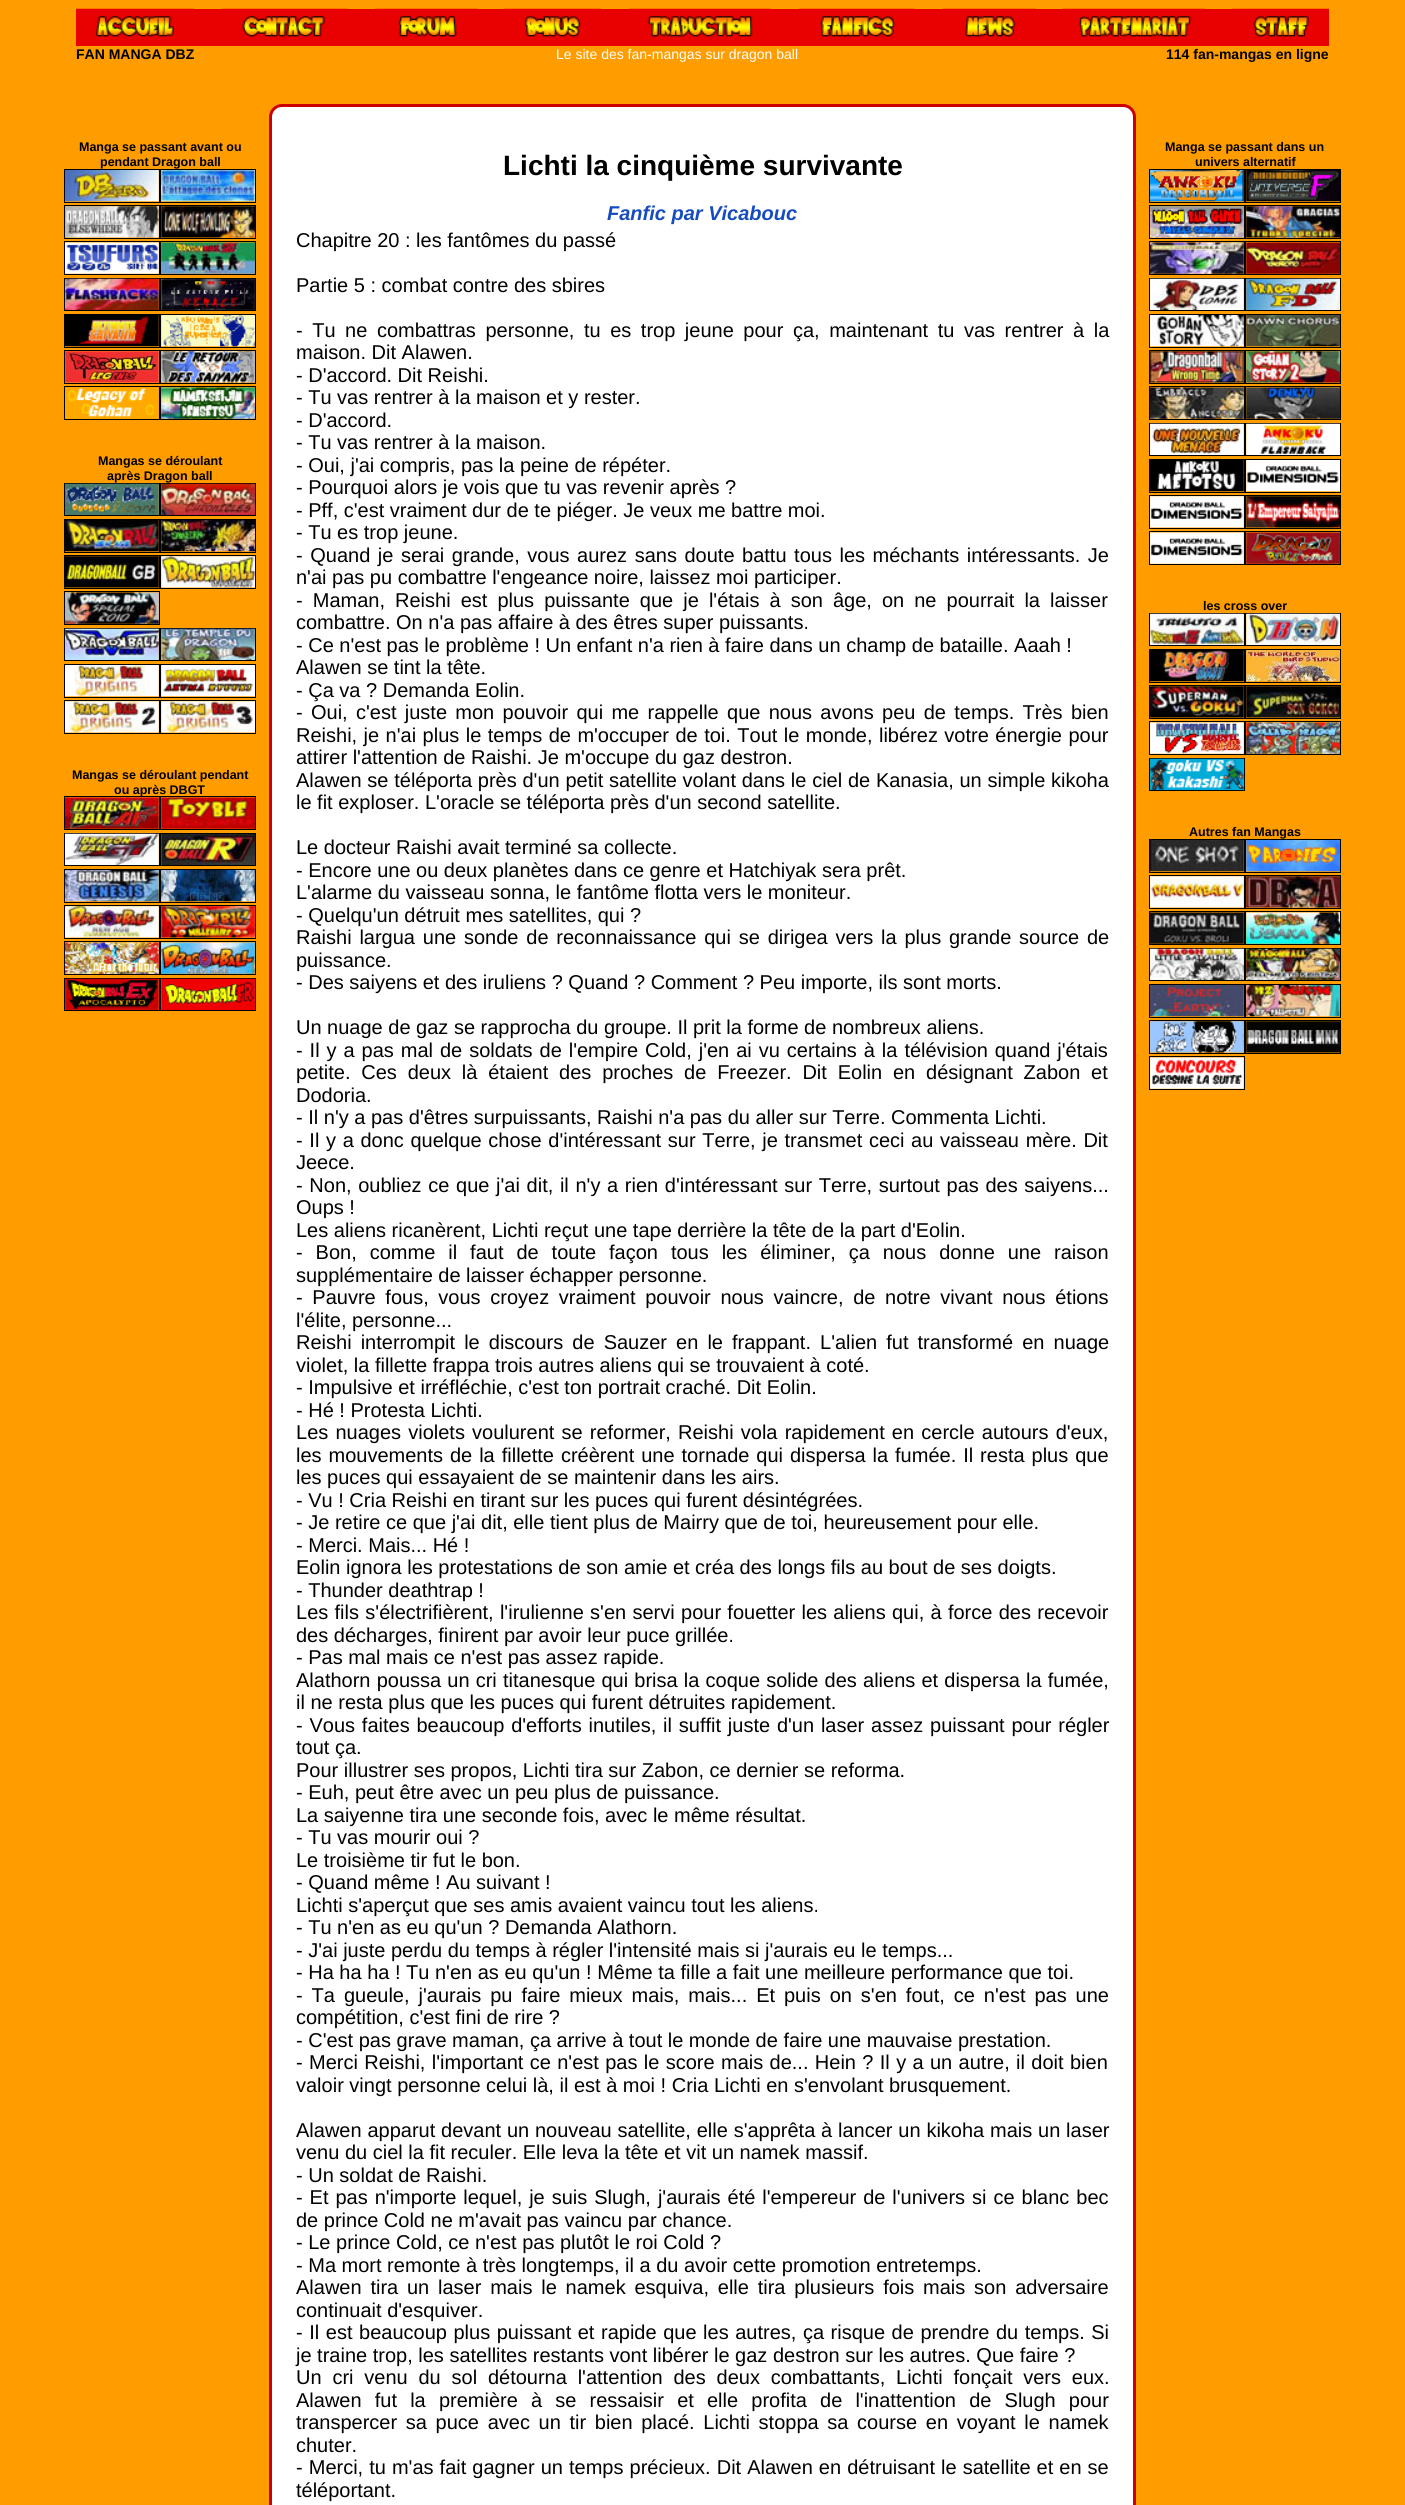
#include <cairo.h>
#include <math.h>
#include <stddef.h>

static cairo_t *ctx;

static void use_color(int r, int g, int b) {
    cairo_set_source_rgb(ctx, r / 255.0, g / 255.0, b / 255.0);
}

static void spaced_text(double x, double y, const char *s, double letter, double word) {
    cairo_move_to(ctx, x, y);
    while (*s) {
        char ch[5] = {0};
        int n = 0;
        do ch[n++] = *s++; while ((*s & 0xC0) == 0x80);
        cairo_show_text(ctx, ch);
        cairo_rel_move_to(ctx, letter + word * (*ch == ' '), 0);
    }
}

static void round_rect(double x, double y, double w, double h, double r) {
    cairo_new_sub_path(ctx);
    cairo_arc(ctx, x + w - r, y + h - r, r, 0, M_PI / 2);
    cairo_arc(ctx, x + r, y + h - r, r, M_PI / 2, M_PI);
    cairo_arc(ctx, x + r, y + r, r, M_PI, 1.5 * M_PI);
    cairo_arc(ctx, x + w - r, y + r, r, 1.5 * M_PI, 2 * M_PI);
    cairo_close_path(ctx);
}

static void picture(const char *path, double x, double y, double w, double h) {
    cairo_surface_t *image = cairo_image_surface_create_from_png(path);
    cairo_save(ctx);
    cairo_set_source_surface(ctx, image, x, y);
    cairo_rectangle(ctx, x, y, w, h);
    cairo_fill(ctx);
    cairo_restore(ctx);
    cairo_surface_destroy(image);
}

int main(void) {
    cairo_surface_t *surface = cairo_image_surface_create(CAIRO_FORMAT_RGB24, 1405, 2505);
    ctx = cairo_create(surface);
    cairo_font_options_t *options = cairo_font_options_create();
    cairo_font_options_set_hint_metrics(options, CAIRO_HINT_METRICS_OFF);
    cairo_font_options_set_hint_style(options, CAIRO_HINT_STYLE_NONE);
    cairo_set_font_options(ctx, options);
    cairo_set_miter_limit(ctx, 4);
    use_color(255, 156, 0);
    cairo_paint(ctx);
    use_color(233, 0, 0);
    cairo_rectangle(ctx, 76, 9, 1253, 37);
    cairo_fill(ctx);
    picture("img1.png", 76, 8, 118, 29);
    picture("img2.png", 221, 8, 127, 29);
    picture("img3.png", 375, 8, 103, 29);
    picture("img4.png", 503, 8, 99, 29);
    picture("img5.png", 628, 8, 144, 29);
    picture("img6.png", 798, 8, 117, 29);
    picture("img7.png", 942, 8, 95, 29);
    picture("img8.png", 1062, 8, 143, 29);
    picture("img9.png", 1232, 8, 97, 29);
    cairo_select_font_face(ctx, "Liberation Sans", CAIRO_FONT_SLANT_NORMAL, CAIRO_FONT_WEIGHT_BOLD);
    cairo_set_font_size(ctx, 14);
    use_color(0, 0, 0);
    cairo_move_to(ctx, 76, 59);
    cairo_show_text(ctx, "FAN MANGA DBZ");
    cairo_select_font_face(ctx, "Liberation Sans", CAIRO_FONT_SLANT_NORMAL, CAIRO_FONT_WEIGHT_NORMAL);
    use_color(255, 255, 255);
    cairo_move_to(ctx, 556, 59);
    cairo_show_text(ctx, "Le site des fan-mangas sur dragon ball");
    cairo_select_font_face(ctx, "Liberation Sans", CAIRO_FONT_SLANT_NORMAL, CAIRO_FONT_WEIGHT_BOLD);
    use_color(0, 0, 0);
    cairo_move_to(ctx, 1166, 59);
    cairo_show_text(ctx, "114 fan-mangas en ligne");
    cairo_set_font_size(ctx, 12.5);
    cairo_move_to(ctx, 79, 151);
    cairo_show_text(ctx, "Manga se passant avant ou");
    cairo_move_to(ctx, 100, 166);
    cairo_show_text(ctx, "pendant Dragon ball");
    cairo_rectangle(ctx, 64.5, 169.5, 95, 33);
    cairo_set_line_width(ctx, 1);
    cairo_stroke(ctx);
    picture("img10.png", 65, 170, 94, 32);
    cairo_rectangle(ctx, 160.5, 169.5, 95, 33);
    cairo_stroke(ctx);
    picture("img11.png", 161, 170, 94, 32);
    cairo_rectangle(ctx, 64.5, 205.5, 95, 33);
    cairo_stroke(ctx);
    picture("img12.png", 65, 206, 94, 32);
    cairo_rectangle(ctx, 160.5, 205.5, 95, 33);
    cairo_stroke(ctx);
    picture("img13.png", 161, 206, 94, 32);
    cairo_rectangle(ctx, 64.5, 241.5, 95, 33);
    cairo_stroke(ctx);
    picture("img14.png", 65, 242, 94, 32);
    cairo_rectangle(ctx, 160.5, 241.5, 95, 33);
    cairo_stroke(ctx);
    picture("img15.png", 161, 242, 94, 32);
    cairo_rectangle(ctx, 64.5, 278.5, 95, 32);
    cairo_stroke(ctx);
    picture("img16.png", 65, 278, 94, 32);
    cairo_rectangle(ctx, 160.5, 278.5, 95, 32);
    cairo_stroke(ctx);
    picture("img17.png", 161, 278, 94, 32);
    cairo_rectangle(ctx, 64.5, 314.5, 95, 33);
    cairo_stroke(ctx);
    picture("img18.png", 65, 315, 94, 32);
    cairo_rectangle(ctx, 160.5, 314.5, 95, 33);
    cairo_stroke(ctx);
    picture("img19.png", 161, 315, 94, 32);
    cairo_rectangle(ctx, 64.5, 350.5, 95, 33);
    cairo_stroke(ctx);
    picture("img20.png", 65, 351, 94, 32);
    cairo_rectangle(ctx, 160.5, 350.5, 95, 33);
    cairo_stroke(ctx);
    picture("img21.png", 161, 351, 94, 32);
    cairo_rectangle(ctx, 64.5, 386.5, 95, 33);
    cairo_stroke(ctx);
    picture("img22.png", 65, 387, 94, 32);
    cairo_rectangle(ctx, 160.5, 386.5, 95, 33);
    cairo_stroke(ctx);
    picture("img23.png", 161, 387, 94, 32);
    cairo_move_to(ctx, 98, 465);
    cairo_show_text(ctx, "Mangas se déroulant");
    cairo_move_to(ctx, 107, 480);
    cairo_show_text(ctx, "après Dragon ball");
    cairo_rectangle(ctx, 64.5, 483.5, 95, 32);
    cairo_stroke(ctx);
    picture("img24.png", 65, 483, 94, 32);
    cairo_rectangle(ctx, 160.5, 483.5, 95, 32);
    cairo_stroke(ctx);
    picture("img25.png", 161, 483, 94, 32);
    cairo_rectangle(ctx, 64.5, 519.5, 95, 33);
    cairo_stroke(ctx);
    picture("img26.png", 65, 520, 94, 32);
    cairo_rectangle(ctx, 160.5, 519.5, 95, 33);
    cairo_stroke(ctx);
    picture("img27.png", 161, 520, 94, 32);
    cairo_rectangle(ctx, 64.5, 555.5, 95, 33);
    cairo_stroke(ctx);
    picture("img28.png", 65, 556, 94, 32);
    cairo_rectangle(ctx, 160.5, 555.5, 95, 33);
    cairo_stroke(ctx);
    picture("img29.png", 161, 556, 94, 32);
    cairo_rectangle(ctx, 64.5, 591.5, 95, 33);
    cairo_stroke(ctx);
    picture("img30.png", 65, 592, 94, 32);
    cairo_rectangle(ctx, 64.5, 628.5, 95, 32);
    cairo_stroke(ctx);
    picture("img31.png", 65, 628, 94, 32);
    cairo_rectangle(ctx, 160.5, 628.5, 95, 32);
    cairo_stroke(ctx);
    picture("img32.png", 161, 628, 94, 32);
    cairo_rectangle(ctx, 64.5, 664.5, 95, 33);
    cairo_stroke(ctx);
    picture("img33.png", 65, 665, 94, 32);
    cairo_rectangle(ctx, 160.5, 664.5, 95, 33);
    cairo_stroke(ctx);
    picture("img34.png", 161, 665, 94, 32);
    cairo_rectangle(ctx, 64.5, 700.5, 95, 33);
    cairo_stroke(ctx);
    picture("img35.png", 65, 701, 94, 32);
    cairo_rectangle(ctx, 160.5, 700.5, 95, 33);
    cairo_stroke(ctx);
    picture("img36.png", 161, 701, 94, 32);
    cairo_move_to(ctx, 72, 779);
    cairo_show_text(ctx, "Mangas se déroulant pendant");
    cairo_move_to(ctx, 114, 794);
    cairo_show_text(ctx, "ou après DBGT");
    cairo_rectangle(ctx, 64.5, 796.5, 95, 33);
    cairo_stroke(ctx);
    picture("img37.png", 65, 797, 94, 32);
    cairo_rectangle(ctx, 160.5, 796.5, 95, 33);
    cairo_stroke(ctx);
    picture("img38.png", 161, 797, 94, 32);
    cairo_rectangle(ctx, 64.5, 833.5, 95, 32);
    cairo_stroke(ctx);
    picture("img39.png", 65, 833, 94, 32);
    cairo_rectangle(ctx, 160.5, 833.5, 95, 32);
    cairo_stroke(ctx);
    picture("img40.png", 161, 833, 94, 32);
    cairo_rectangle(ctx, 64.5, 869.5, 95, 33);
    cairo_stroke(ctx);
    picture("img41.png", 65, 870, 94, 32);
    cairo_rectangle(ctx, 160.5, 869.5, 95, 33);
    cairo_stroke(ctx);
    picture("img42.png", 161, 870, 94, 32);
    cairo_rectangle(ctx, 64.5, 905.5, 95, 33);
    cairo_stroke(ctx);
    picture("img43.png", 65, 906, 94, 32);
    cairo_rectangle(ctx, 160.5, 905.5, 95, 33);
    cairo_stroke(ctx);
    picture("img44.png", 161, 906, 94, 32);
    cairo_rectangle(ctx, 64.5, 941.5, 95, 33);
    cairo_stroke(ctx);
    picture("img45.png", 65, 942, 94, 32);
    cairo_rectangle(ctx, 160.5, 941.5, 95, 33);
    cairo_stroke(ctx);
    picture("img46.png", 161, 942, 94, 32);
    cairo_rectangle(ctx, 64.5, 978.5, 95, 32);
    cairo_stroke(ctx);
    picture("img47.png", 65, 978, 94, 32);
    cairo_rectangle(ctx, 160.5, 978.5, 95, 32);
    cairo_stroke(ctx);
    picture("img48.png", 161, 978, 94, 32);
    use_color(255, 255, 255);
    round_rect(270.5, 105.5, 864, 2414, 11.5);
    cairo_fill_preserve(ctx);
    use_color(205, 0, 0);
    cairo_set_line_width(ctx, 3);
    cairo_stroke(ctx);
    cairo_set_font_size(ctx, 28);
    use_color(0, 0, 0);
    cairo_move_to(ctx, 503, 175);
    cairo_show_text(ctx, "Lichti la cinquième survivante");
    cairo_select_font_face(ctx, "Liberation Sans", CAIRO_FONT_SLANT_ITALIC, CAIRO_FONT_WEIGHT_BOLD);
    cairo_set_font_size(ctx, 20);
    use_color(23, 76, 190);
    cairo_move_to(ctx, 607, 220);
    cairo_show_text(ctx, "Fanfic par Vicabouc");
    cairo_select_font_face(ctx, "Liberation Sans", CAIRO_FONT_SLANT_NORMAL, CAIRO_FONT_WEIGHT_NORMAL);
    use_color(0, 0, 0);
    cairo_move_to(ctx, 296, 247);
    cairo_show_text(ctx, "Chapitre 20 : les fantômes du passé");
    cairo_move_to(ctx, 296, 292);
    cairo_show_text(ctx, "Partie 5 : combat contre des sbires");
    spaced_text(296, 337, "- Tu ne combattras personne, tu es trop jeune pour ça, maintenant tu vas rentrer à la", 0, 4);
    cairo_move_to(ctx, 296, 359);
    cairo_show_text(ctx, "maison. Dit Alawen.");
    cairo_move_to(ctx, 296, 382);
    cairo_show_text(ctx, "- D'accord. Dit Reishi.");
    cairo_move_to(ctx, 296, 404);
    cairo_show_text(ctx, "- Tu vas rentrer à la maison et y rester.");
    cairo_move_to(ctx, 296, 427);
    cairo_show_text(ctx, "- D'accord.");
    cairo_move_to(ctx, 296, 449);
    cairo_show_text(ctx, "- Tu vas rentrer à la maison.");
    cairo_move_to(ctx, 296, 472);
    cairo_show_text(ctx, "- Oui, j'ai compris, pas la peine de répéter.");
    cairo_move_to(ctx, 296, 494);
    cairo_show_text(ctx, "- Pourquoi alors je vois que tu vas revenir après ?");
    cairo_move_to(ctx, 296, 517);
    cairo_show_text(ctx, "- Pff, c'est vraiment dur de te piéger. Je veux me battre moi.");
    cairo_move_to(ctx, 296, 539);
    cairo_show_text(ctx, "- Tu es trop jeune.");
    spaced_text(296, 562, "- Quand je serai grande, vous aurez sans doute battu tous les méchants intéressants. Je", 0, 2);
    cairo_move_to(ctx, 296, 584);
    cairo_show_text(ctx, "n'ai pas pu combattre l'engeance noire, laissez moi participer.");
    spaced_text(296, 607, "- Maman, Reishi est plus puissante que je l'étais à son âge, on ne pourrait la laisser", 0, 4.5);
    cairo_move_to(ctx, 296, 629);
    cairo_show_text(ctx, "combattre. On n'a pas affaire à des êtres super puissants.");
    cairo_move_to(ctx, 296, 652);
    cairo_show_text(ctx, "- Ce n'est pas le problème ! Un enfant n'a rien à faire dans un champ de bataille. Aaah !");
    cairo_move_to(ctx, 296, 674);
    cairo_show_text(ctx, "Alawen se tint la tête.");
    cairo_move_to(ctx, 296, 697);
    cairo_show_text(ctx, "- Ça va ? Demanda Eolin.");
    spaced_text(296, 719, "- Oui, c'est juste mon pouvoir qui me rappelle que nous avons peu de temps. Très bien", 0, 2.75);
    spaced_text(296, 742, "Reishi, je n'ai plus le temps de m'occuper de toi. Tout le monde, libérez votre énergie pour", 0, 0.9);
    cairo_move_to(ctx, 296, 764);
    cairo_show_text(ctx, "attirer l'attention de Raishi. Je m'occupe du gaz destron.");
    spaced_text(296, 787, "Alawen se téléporta près d'un petit satellite volant dans le ciel de Kanasia, un simple kikoha", 0, 0.2);
    cairo_move_to(ctx, 296, 809);
    cairo_show_text(ctx, "le fit exploser. L'oracle se téléporta près d'un second satellite.");
    cairo_move_to(ctx, 296, 854);
    cairo_show_text(ctx, "Le docteur Raishi avait terminé sa collecte.");
    cairo_move_to(ctx, 296, 877);
    cairo_show_text(ctx, "- Encore une ou deux planètes dans ce genre et Hatchiyak sera prêt.");
    cairo_move_to(ctx, 296, 899);
    cairo_show_text(ctx, "L'alarme du vaisseau sonna, le fantôme flotta vers le moniteur.");
    cairo_move_to(ctx, 296, 922);
    cairo_show_text(ctx, "- Quelqu'un détruit mes satellites, qui ?");
    spaced_text(296, 944, "Raishi largua une sonde de reconnaissance qui se dirigea vers la plus grande source de", 0, 2.25);
    cairo_move_to(ctx, 296, 967);
    cairo_show_text(ctx, "puissance.");
    cairo_move_to(ctx, 296, 989);
    cairo_show_text(ctx, "- Des saiyens et des iruliens ? Quand ? Comment ? Peu importe, ils sont morts.");
    cairo_move_to(ctx, 296, 1034);
    cairo_show_text(ctx, "Un nuage de gaz se rapprocha du groupe. Il prit la forme de nombreux aliens.");
    spaced_text(296, 1057, "- Il y a pas mal de soldats de l'empire Cold, j'en ai vu certains à la télévision quand j'étais", 0, 1.4);
    spaced_text(296, 1079, "petite. Ces deux là étaient des proches de Freezer. Dit Eolin en désignant Zabon et", 0, 5.25);
    cairo_move_to(ctx, 296, 1102);
    cairo_show_text(ctx, "Dodoria.");
    cairo_move_to(ctx, 296, 1124);
    cairo_show_text(ctx, "- Il n'y a pas d'êtres surpuissants, Raishi n'a pas du aller sur Terre. Commenta Lichti.");
    spaced_text(296, 1147, "- Il y a donc quelque chose d'intéressant sur Terre, je transmet ceci au vaisseau mère. Dit", 0, 1.1);
    cairo_move_to(ctx, 296, 1169);
    cairo_show_text(ctx, "Jeece.");
    spaced_text(296, 1192, "- Non, oubliez ce que j'ai dit, il n'y a rien d'intéressant sur Terre, surtout pas des saiyens...", 0, 1.1);
    cairo_move_to(ctx, 296, 1214);
    cairo_show_text(ctx, "Oups !");
    cairo_move_to(ctx, 296, 1237);
    cairo_show_text(ctx, "Les aliens ricanèrent, Lichti reçut une tape derrière la tête de la part d'Eolin.");
    spaced_text(296, 1259, "- Bon, comme il faut de toute façon tous les éliminer, ça nous donne une raison", 0, 7.4);
    cairo_move_to(ctx, 296, 1282);
    cairo_show_text(ctx, "supplémentaire de laisser échapper personne.");
    spaced_text(296, 1304, "- Pauvre fous, vous croyez vraiment pouvoir nous vaincre, de notre vivant nous étions", 0, 4.1);
    cairo_move_to(ctx, 296, 1327);
    cairo_show_text(ctx, "l'élite, personne...");
    spaced_text(296, 1349, "Reishi interrompit le discours de Sauzer en le frappant. L'alien fut transformé en nuage", 0, 3.5);
    cairo_move_to(ctx, 296, 1372);
    cairo_show_text(ctx, "violet, la fillette frappa trois autres aliens qui se trouvaient à coté.");
    cairo_move_to(ctx, 296, 1394);
    cairo_show_text(ctx, "- Impulsive et irréfléchie, c'est ton portrait craché. Dit Eolin.");
    cairo_move_to(ctx, 296, 1417);
    cairo_show_text(ctx, "- Hé ! Protesta Lichti.");
    spaced_text(296, 1439, "Les nuages violets voulurent se reformer, Reishi vola rapidement en cercle autours d'eux,", 0, 1.6);
    spaced_text(296, 1462, "les mouvements de la fillette créèrent une tornade qui dispersa la fumée. Il resta plus que", 0, 1.4);
    cairo_move_to(ctx, 296, 1484);
    cairo_show_text(ctx, "les puces qui essayaient de se maintenir dans les airs.");
    cairo_move_to(ctx, 296, 1507);
    cairo_show_text(ctx, "- Vu ! Cria Reishi en tirant sur les puces qui furent désintégrées.");
    cairo_move_to(ctx, 296, 1529);
    cairo_show_text(ctx, "- Je retire ce que j'ai dit, elle tient plus de Mairry que de toi, heureusement pour elle.");
    cairo_move_to(ctx, 296, 1552);
    cairo_show_text(ctx, "- Merci. Mais... Hé !");
    cairo_move_to(ctx, 296, 1574);
    cairo_show_text(ctx, "Eolin ignora les protestations de son amie et créa des longs fils au bout de ses doigts.");
    cairo_move_to(ctx, 296, 1597);
    cairo_show_text(ctx, "- Thunder deathtrap !");
    spaced_text(296, 1619, "Les fils s'électrifièrent, l'irulienne s'en servi pour fouetter les aliens qui, à force des recevoir", 0, 0.75);
    cairo_move_to(ctx, 296, 1642);
    cairo_show_text(ctx, "des décharges, finirent par avoir leur puce grillée.");
    cairo_move_to(ctx, 296, 1664);
    cairo_show_text(ctx, "- Pas mal mais ce n'est pas assez rapide.");
    spaced_text(296, 1687, "Alathorn poussa un cri titanesque qui brisa la coque solide des aliens et dispersa la fumée,", 0, 0.6);
    cairo_move_to(ctx, 296, 1709);
    cairo_show_text(ctx, "il ne resta plus que les puces qui furent détruites rapidement.");
    spaced_text(296, 1732, "- Vous faites beaucoup d'efforts inutiles, il suffit juste d'un laser assez puissant pour régler", 0, 1.25);
    cairo_move_to(ctx, 296, 1754);
    cairo_show_text(ctx, "tout ça.");
    cairo_move_to(ctx, 296, 1777);
    cairo_show_text(ctx, "Pour illustrer ses propos, Lichti tira sur Zabon, ce dernier se reforma.");
    cairo_move_to(ctx, 296, 1799);
    cairo_show_text(ctx, "- Euh, peut être avec un peu plus de puissance.");
    cairo_move_to(ctx, 296, 1822);
    cairo_show_text(ctx, "La saiyenne tira une seconde fois, avec le même résultat.");
    cairo_move_to(ctx, 296, 1844);
    cairo_show_text(ctx, "- Tu vas mourir oui ?");
    cairo_move_to(ctx, 296, 1867);
    cairo_show_text(ctx, "Le troisième tir fut le bon.");
    cairo_move_to(ctx, 296, 1889);
    cairo_show_text(ctx, "- Quand même ! Au suivant !");
    cairo_move_to(ctx, 296, 1912);
    cairo_show_text(ctx, "Lichti s'aperçut que ses amis avaient vaincu tout les aliens.");
    cairo_move_to(ctx, 296, 1934);
    cairo_show_text(ctx, "- Tu n'en as eu qu'un ? Demanda Alathorn.");
    cairo_move_to(ctx, 296, 1957);
    cairo_show_text(ctx, "- J'ai juste perdu du temps à régler l'intensité mais si j'aurais eu le temps...");
    cairo_move_to(ctx, 296, 1979);
    cairo_show_text(ctx, "- Ha ha ha ! Tu n'en as eu qu'un ! Même ta fille a fait une meilleure performance que toi.");
    spaced_text(296, 2002, "- Ta gueule, j'aurais pu faire mieux mais, mais... Et puis on s'en fout, ce n'est pas une", 0, 3.4);
    cairo_move_to(ctx, 296, 2024);
    cairo_show_text(ctx, "compétition, c'est fini de rire ?");
    cairo_move_to(ctx, 296, 2047);
    cairo_show_text(ctx, "- C'est pas grave maman, ça arrive à tout le monde de faire une mauvaise prestation.");
    spaced_text(296, 2069, "- Merci Reishi, l'important ce n'est pas le score mais de... Hein ? Il y a un autre, il doit bien", 0, 0.8);
    cairo_move_to(ctx, 296, 2092);
    cairo_show_text(ctx, "valoir vingt personne celui là, il est à moi ! Cria Lichti en s'envolant brusquement.");
    spaced_text(296, 2137, "Alawen apparut devant un nouveau satellite, elle s'apprêta à lancer un kikoha mais un laser", 0, 0.25);
    cairo_move_to(ctx, 296, 2159);
    cairo_show_text(ctx, "venu du ciel la fit reculer. Elle leva la tête et vit un namek massif.");
    cairo_move_to(ctx, 296, 2182);
    cairo_show_text(ctx, "- Un soldat de Raishi.");
    spaced_text(296, 2204, "- Et pas n'importe lequel, je suis Slugh, j'aurais été l'empereur de l'univers si ce blanc bec", 0, 1.4);
    cairo_move_to(ctx, 296, 2227);
    cairo_show_text(ctx, "de prince Cold ne m'avait pas vaincu par chance.");
    cairo_move_to(ctx, 296, 2249);
    cairo_show_text(ctx, "- Le prince Cold, ce n'est pas plutôt le roi Cold ?");
    cairo_move_to(ctx, 296, 2272);
    cairo_show_text(ctx, "- Ma mort remonte à très longtemps, il a du avoir cette promotion entretemps.");
    spaced_text(296, 2294, "Alawen tira un laser mais le namek esquiva, elle tira plusieurs fois mais son adversaire", 0, 3.25);
    cairo_move_to(ctx, 296, 2317);
    cairo_show_text(ctx, "continuait d'esquiver.");
    spaced_text(296, 2339, "- Il est beaucoup plus puissant et rapide que les autres, ça risque de prendre du temps. Si", 0, 1);
    cairo_move_to(ctx, 296, 2362);
    cairo_show_text(ctx, "je traine trop, les satellites restants vont libérer le gaz destron sur les autres. Que faire ?");
    spaced_text(296, 2384, "Un cri venu du sol détourna l'attention des deux combattants, Lichti fonçait vers eux.", 0, 5.25);
    spaced_text(296, 2407, "Alawen fut la première à se ressaisir et elle profita de l'inattention de Slugh pour", 0, 7.6);
    spaced_text(296, 2429, "transpercer sa puce avec un tir bien placé. Lichti stoppa sa course en voyant le namek", 0, 3.1);
    cairo_move_to(ctx, 296, 2452);
    cairo_show_text(ctx, "chuter.");
    spaced_text(296, 2474, "- Merci, tu m'as fait gagner un temps précieux. Dit Alawen en détruisant le satellite et en se", 0, 0.5);
    cairo_move_to(ctx, 296, 2497);
    cairo_show_text(ctx, "téléportant.");
    cairo_select_font_face(ctx, "Liberation Sans", CAIRO_FONT_SLANT_NORMAL, CAIRO_FONT_WEIGHT_BOLD);
    cairo_set_font_size(ctx, 12.5);
    cairo_move_to(ctx, 1165, 151);
    cairo_show_text(ctx, "Manga se passant dans un");
    cairo_move_to(ctx, 1195, 166);
    cairo_show_text(ctx, "univers alternatif");
    cairo_rectangle(ctx, 1149.5, 169.5, 95, 33);
    cairo_set_line_width(ctx, 1);
    cairo_stroke(ctx);
    picture("img49.png", 1150, 170, 94, 32);
    cairo_rectangle(ctx, 1245.5, 169.5, 95, 33);
    cairo_stroke(ctx);
    picture("img50.png", 1246, 170, 94, 32);
    cairo_rectangle(ctx, 1149.5, 205.5, 95, 33);
    cairo_stroke(ctx);
    picture("img51.png", 1150, 206, 94, 32);
    cairo_rectangle(ctx, 1245.5, 205.5, 95, 33);
    cairo_stroke(ctx);
    picture("img52.png", 1246, 206, 94, 32);
    cairo_rectangle(ctx, 1149.5, 241.5, 95, 33);
    cairo_stroke(ctx);
    picture("img53.png", 1150, 242, 94, 32);
    cairo_rectangle(ctx, 1245.5, 241.5, 95, 33);
    cairo_stroke(ctx);
    picture("img54.png", 1246, 242, 94, 32);
    cairo_rectangle(ctx, 1149.5, 278.5, 95, 32);
    cairo_stroke(ctx);
    picture("img55.png", 1150, 278, 94, 32);
    cairo_rectangle(ctx, 1245.5, 278.5, 95, 32);
    cairo_stroke(ctx);
    picture("img56.png", 1246, 278, 94, 32);
    cairo_rectangle(ctx, 1149.5, 314.5, 95, 33);
    cairo_stroke(ctx);
    picture("img57.png", 1150, 315, 94, 32);
    cairo_rectangle(ctx, 1245.5, 314.5, 95, 33);
    cairo_stroke(ctx);
    picture("img58.png", 1246, 315, 94, 32);
    cairo_rectangle(ctx, 1149.5, 350.5, 95, 33);
    cairo_stroke(ctx);
    picture("img59.png", 1150, 351, 94, 32);
    cairo_rectangle(ctx, 1245.5, 350.5, 95, 33);
    cairo_stroke(ctx);
    picture("img60.png", 1246, 351, 94, 32);
    cairo_rectangle(ctx, 1149.5, 386.5, 95, 33);
    cairo_stroke(ctx);
    picture("img61.png", 1150, 387, 94, 32);
    cairo_rectangle(ctx, 1245.5, 386.5, 95, 33);
    cairo_stroke(ctx);
    picture("img62.png", 1246, 387, 94, 32);
    cairo_rectangle(ctx, 1149.5, 423.5, 95, 32);
    cairo_stroke(ctx);
    picture("img63.png", 1150, 423, 94, 32);
    cairo_rectangle(ctx, 1245.5, 423.5, 95, 32);
    cairo_stroke(ctx);
    picture("img64.png", 1246, 423, 94, 32);
    cairo_rectangle(ctx, 1149.5, 459.5, 95, 33);
    cairo_stroke(ctx);
    picture("img65.png", 1150, 460, 94, 32);
    cairo_rectangle(ctx, 1245.5, 459.5, 95, 33);
    cairo_stroke(ctx);
    picture("img66.png", 1246, 460, 94, 32);
    cairo_rectangle(ctx, 1149.5, 495.5, 95, 33);
    cairo_stroke(ctx);
    picture("img67.png", 1150, 496, 94, 32);
    cairo_rectangle(ctx, 1245.5, 495.5, 95, 33);
    cairo_stroke(ctx);
    picture("img68.png", 1246, 496, 94, 32);
    cairo_rectangle(ctx, 1149.5, 531.5, 95, 33);
    cairo_stroke(ctx);
    picture("img69.png", 1150, 532, 94, 32);
    cairo_rectangle(ctx, 1245.5, 531.5, 95, 33);
    cairo_stroke(ctx);
    picture("img70.png", 1246, 532, 94, 32);
    cairo_move_to(ctx, 1203, 610);
    cairo_show_text(ctx, "les cross over");
    cairo_rectangle(ctx, 1149.5, 613.5, 95, 32);
    cairo_stroke(ctx);
    picture("img71.png", 1150, 613, 94, 32);
    cairo_rectangle(ctx, 1245.5, 613.5, 95, 32);
    cairo_stroke(ctx);
    picture("img72.png", 1246, 613, 94, 32);
    cairo_rectangle(ctx, 1149.5, 649.5, 95, 33);
    cairo_stroke(ctx);
    picture("img73.png", 1150, 650, 94, 32);
    cairo_rectangle(ctx, 1245.5, 649.5, 95, 33);
    cairo_stroke(ctx);
    picture("img74.png", 1246, 650, 94, 32);
    cairo_rectangle(ctx, 1149.5, 685.5, 95, 33);
    cairo_stroke(ctx);
    picture("img75.png", 1150, 686, 94, 32);
    cairo_rectangle(ctx, 1245.5, 685.5, 95, 33);
    cairo_stroke(ctx);
    picture("img76.png", 1246, 686, 94, 32);
    cairo_rectangle(ctx, 1149.5, 721.5, 95, 33);
    cairo_stroke(ctx);
    picture("img77.png", 1150, 722, 94, 32);
    cairo_rectangle(ctx, 1245.5, 721.5, 95, 33);
    cairo_stroke(ctx);
    picture("img78.png", 1246, 722, 94, 32);
    cairo_rectangle(ctx, 1149.5, 758.5, 95, 32);
    cairo_stroke(ctx);
    picture("img79.png", 1150, 758, 94, 32);
    cairo_move_to(ctx, 1189, 836);
    cairo_show_text(ctx, "Autres fan Mangas");
    cairo_rectangle(ctx, 1149.5, 839.5, 95, 33);
    cairo_stroke(ctx);
    picture("img80.png", 1150, 840, 94, 32);
    cairo_rectangle(ctx, 1245.5, 839.5, 95, 33);
    cairo_stroke(ctx);
    picture("img81.png", 1246, 840, 94, 32);
    cairo_rectangle(ctx, 1149.5, 875.5, 95, 33);
    cairo_stroke(ctx);
    picture("img82.png", 1150, 876, 94, 32);
    cairo_rectangle(ctx, 1245.5, 875.5, 95, 33);
    cairo_stroke(ctx);
    picture("img83.png", 1246, 876, 94, 32);
    cairo_rectangle(ctx, 1149.5, 911.5, 95, 33);
    cairo_stroke(ctx);
    picture("img84.png", 1150, 912, 94, 32);
    cairo_rectangle(ctx, 1245.5, 911.5, 95, 33);
    cairo_stroke(ctx);
    picture("img85.png", 1246, 912, 94, 32);
    cairo_rectangle(ctx, 1149.5, 948.5, 95, 32);
    cairo_stroke(ctx);
    picture("img86.png", 1150, 948, 94, 32);
    cairo_rectangle(ctx, 1245.5, 948.5, 95, 32);
    cairo_stroke(ctx);
    picture("img87.png", 1246, 948, 94, 32);
    cairo_rectangle(ctx, 1149.5, 984.5, 95, 33);
    cairo_stroke(ctx);
    picture("img88.png", 1150, 985, 94, 32);
    cairo_rectangle(ctx, 1245.5, 984.5, 95, 33);
    cairo_stroke(ctx);
    picture("img89.png", 1246, 985, 94, 32);
    cairo_rectangle(ctx, 1149.5, 1020.5, 95, 33);
    cairo_stroke(ctx);
    picture("img90.png", 1150, 1021, 94, 32);
    cairo_rectangle(ctx, 1245.5, 1020.5, 95, 33);
    cairo_stroke(ctx);
    picture("img91.png", 1246, 1021, 94, 32);
    cairo_rectangle(ctx, 1149.5, 1056.5, 95, 33);
    cairo_stroke(ctx);
    picture("img92.png", 1150, 1057, 94, 32);
    cairo_surface_write_to_png(surface, "result.png");
    cairo_font_options_destroy(options);
    cairo_destroy(ctx);
    cairo_surface_destroy(surface);
    return 0;
}
